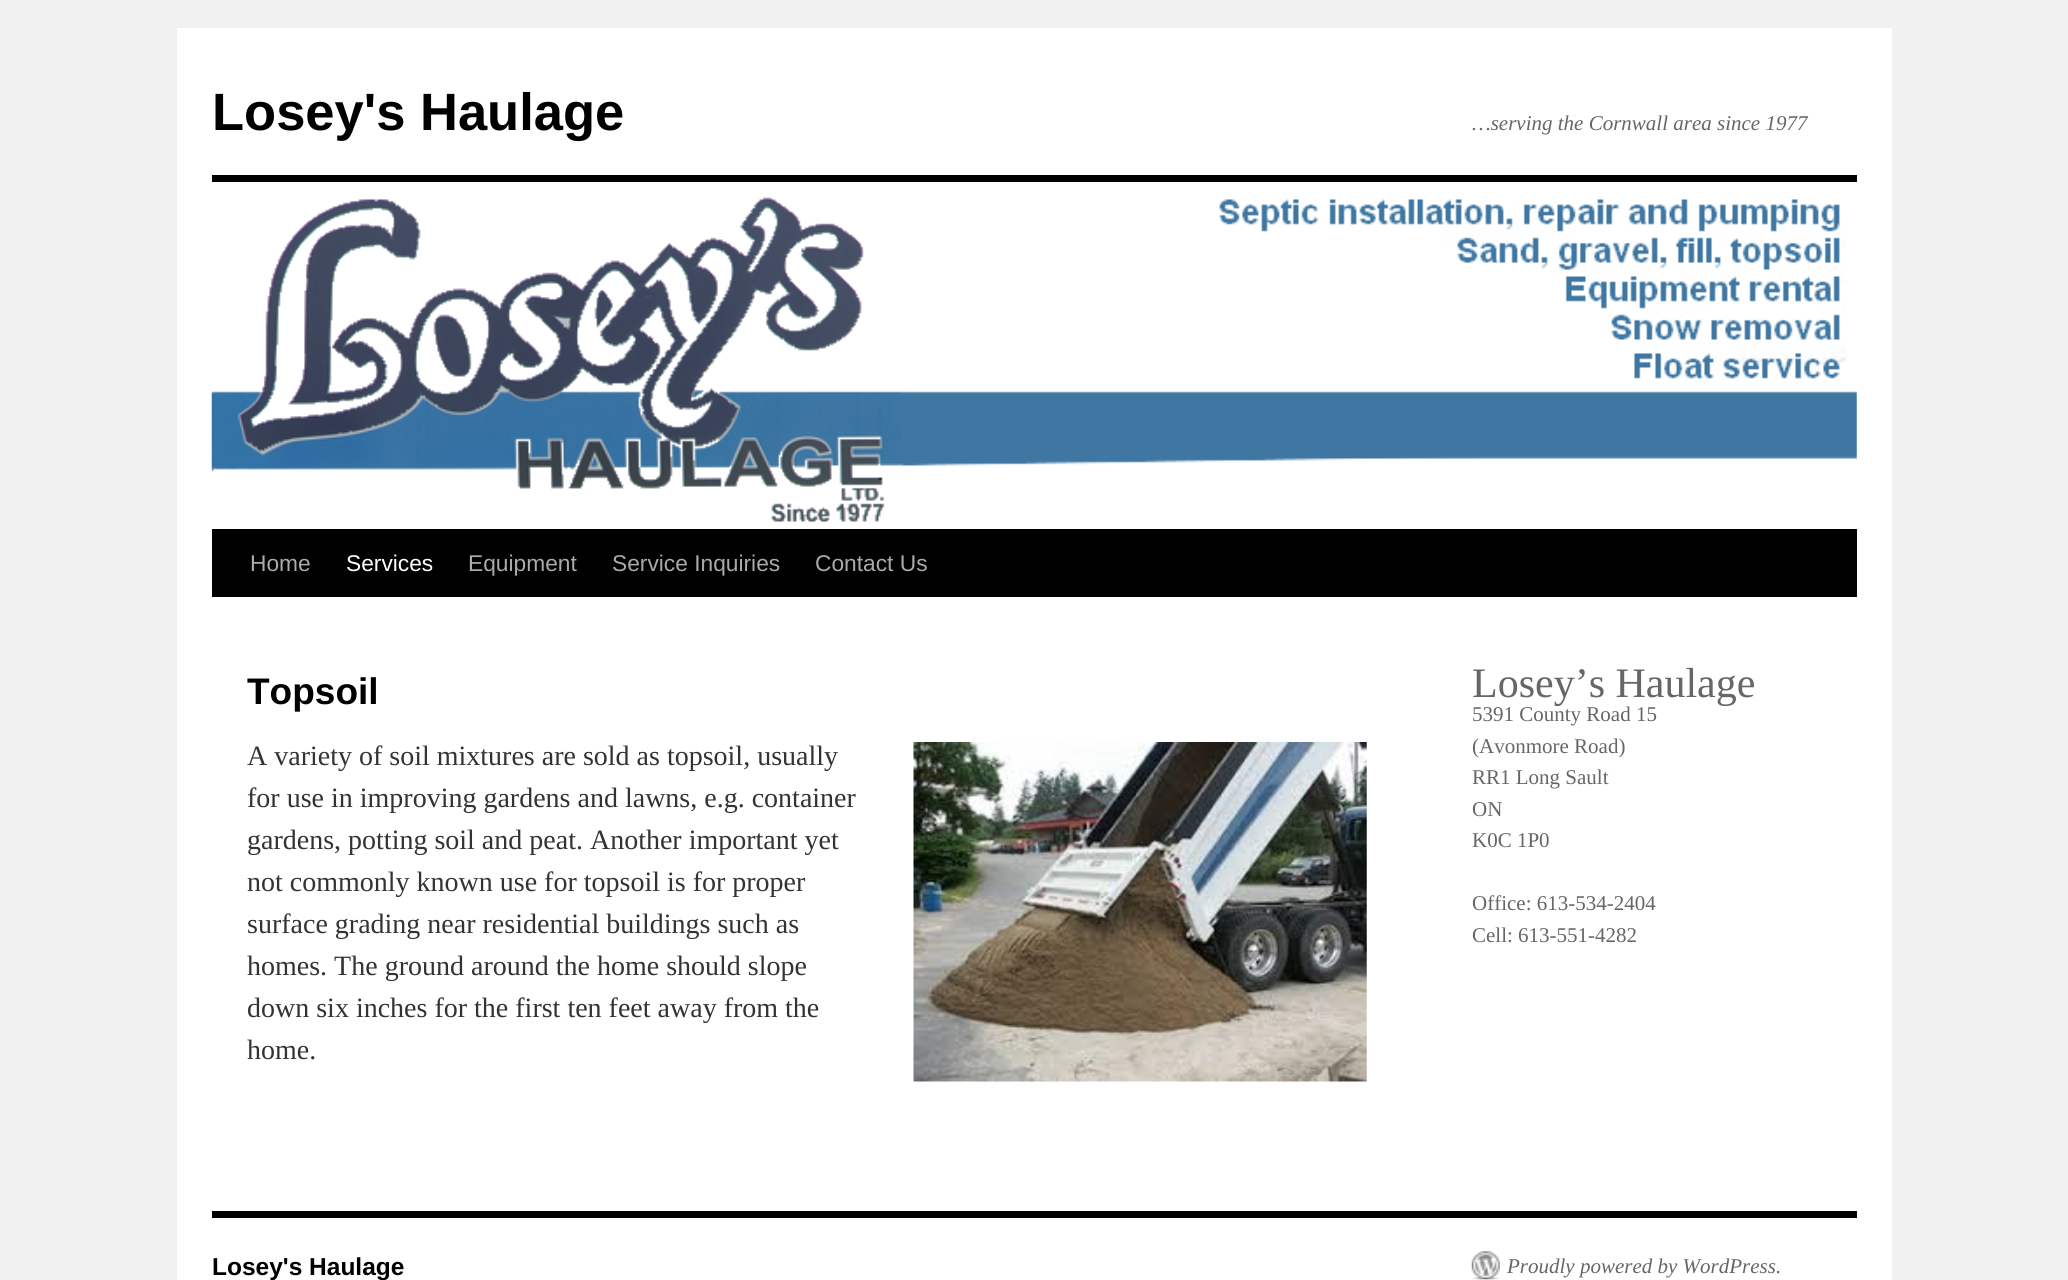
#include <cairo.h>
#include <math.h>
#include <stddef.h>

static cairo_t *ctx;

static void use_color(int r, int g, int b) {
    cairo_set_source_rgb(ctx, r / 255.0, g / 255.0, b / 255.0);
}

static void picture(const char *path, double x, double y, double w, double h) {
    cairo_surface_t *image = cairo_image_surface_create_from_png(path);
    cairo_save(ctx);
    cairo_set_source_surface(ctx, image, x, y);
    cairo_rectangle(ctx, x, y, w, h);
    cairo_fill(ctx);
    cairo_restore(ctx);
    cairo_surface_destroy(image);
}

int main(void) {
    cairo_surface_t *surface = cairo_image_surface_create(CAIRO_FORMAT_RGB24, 2068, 1280);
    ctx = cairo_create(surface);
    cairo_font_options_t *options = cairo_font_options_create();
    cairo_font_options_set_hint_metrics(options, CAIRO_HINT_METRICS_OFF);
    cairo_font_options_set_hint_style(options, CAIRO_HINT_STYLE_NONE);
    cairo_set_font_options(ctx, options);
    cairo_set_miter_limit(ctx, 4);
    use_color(241, 241, 241);
    cairo_paint(ctx);
    use_color(255, 255, 255);
    cairo_rectangle(ctx, 177, 28, 1715, 1252);
    cairo_fill(ctx);
    cairo_select_font_face(ctx, "Liberation Sans", CAIRO_FONT_SLANT_NORMAL, CAIRO_FONT_WEIGHT_BOLD);
    cairo_set_font_size(ctx, 52.5);
    use_color(0, 0, 0);
    cairo_move_to(ctx, 212, 130);
    cairo_show_text(ctx, "Losey's Haulage");
    cairo_select_font_face(ctx, "Liberation Serif", CAIRO_FONT_SLANT_ITALIC, CAIRO_FONT_WEIGHT_NORMAL);
    cairo_set_font_size(ctx, 21);
    use_color(102, 102, 102);
    cairo_move_to(ctx, 1472, 130);
    cairo_show_text(ctx, "…serving the Cornwall area since 1977");
    use_color(0, 0, 0);
    cairo_rectangle(ctx, 212, 175, 1645, 7);
    cairo_fill(ctx);
    cairo_rectangle(ctx, 212, 529, 1645, 68);
    cairo_fill(ctx);
    picture("img1.png", 211, 197, 1646, 325);
    cairo_select_font_face(ctx, "Liberation Sans", CAIRO_FONT_SLANT_NORMAL, CAIRO_FONT_WEIGHT_NORMAL);
    cairo_set_font_size(ctx, 22.75);
    use_color(170, 170, 170);
    cairo_move_to(ctx, 250, 571);
    cairo_show_text(ctx, "Home");
    use_color(255, 255, 255);
    cairo_move_to(ctx, 346, 571);
    cairo_show_text(ctx, "Services");
    use_color(170, 170, 170);
    cairo_move_to(ctx, 468, 571);
    cairo_show_text(ctx, "Equipment");
    cairo_move_to(ctx, 612, 571);
    cairo_show_text(ctx, "Service Inquiries");
    cairo_move_to(ctx, 815, 571);
    cairo_show_text(ctx, "Contact Us");
    cairo_select_font_face(ctx, "Liberation Sans", CAIRO_FONT_SLANT_NORMAL, CAIRO_FONT_WEIGHT_BOLD);
    cairo_set_font_size(ctx, 37);
    use_color(0, 0, 0);
    cairo_move_to(ctx, 247, 704);
    cairo_show_text(ctx, "Topsoil");
    cairo_select_font_face(ctx, "Liberation Serif", CAIRO_FONT_SLANT_NORMAL, CAIRO_FONT_WEIGHT_NORMAL);
    cairo_set_font_size(ctx, 28);
    use_color(51, 51, 51);
    cairo_move_to(ctx, 247, 765);
    cairo_show_text(ctx, "A variety of soil mixtures are sold as topsoil, usually");
    picture("img2.png", 913, 742, 454, 340);
    cairo_move_to(ctx, 247, 807);
    cairo_show_text(ctx, "for use in improving gardens and lawns, e.g. container");
    cairo_move_to(ctx, 247, 849);
    cairo_show_text(ctx, "gardens, potting soil and peat. Another important yet");
    cairo_move_to(ctx, 247, 891);
    cairo_show_text(ctx, "not commonly known use for topsoil is for proper");
    cairo_move_to(ctx, 247, 933);
    cairo_show_text(ctx, "surface grading near residential buildings such as");
    cairo_move_to(ctx, 247, 975);
    cairo_show_text(ctx, "homes. The ground around the home should slope");
    cairo_move_to(ctx, 247, 1017);
    cairo_show_text(ctx, "down six inches for the first ten feet away from the");
    cairo_move_to(ctx, 247, 1059);
    cairo_show_text(ctx, "home.");
    cairo_set_font_size(ctx, 42);
    use_color(102, 102, 102);
    cairo_move_to(ctx, 1472, 697);
    cairo_show_text(ctx, "Losey’s Haulage");
    cairo_set_font_size(ctx, 21);
    cairo_move_to(ctx, 1472, 721);
    cairo_show_text(ctx, "5391 County Road 15");
    cairo_move_to(ctx, 1472, 753);
    cairo_show_text(ctx, "(Avonmore Road)");
    cairo_move_to(ctx, 1472, 784);
    cairo_show_text(ctx, "RR1 Long Sault");
    cairo_move_to(ctx, 1472, 816);
    cairo_show_text(ctx, "ON");
    cairo_move_to(ctx, 1472, 847);
    cairo_show_text(ctx, "K0C 1P0");
    cairo_move_to(ctx, 1472, 910);
    cairo_show_text(ctx, "Office: 613-534-2404");
    cairo_move_to(ctx, 1472, 942);
    cairo_show_text(ctx, "Cell: 613-551-4282");
    use_color(0, 0, 0);
    cairo_rectangle(ctx, 212, 1211, 1645, 7);
    cairo_fill(ctx);
    cairo_select_font_face(ctx, "Liberation Sans", CAIRO_FONT_SLANT_NORMAL, CAIRO_FONT_WEIGHT_BOLD);
    cairo_set_font_size(ctx, 24.5);
    cairo_move_to(ctx, 212, 1275);
    cairo_show_text(ctx, "Losey's Haulage");
    picture("img3.png", 1471, 1251, 29, 29);
    cairo_select_font_face(ctx, "Liberation Serif", CAIRO_FONT_SLANT_ITALIC, CAIRO_FONT_WEIGHT_NORMAL);
    cairo_set_font_size(ctx, 21);
    use_color(102, 102, 102);
    cairo_move_to(ctx, 1507, 1273);
    cairo_show_text(ctx, "Proudly powered by WordPress.");
    cairo_surface_write_to_png(surface, "result.png");
    cairo_font_options_destroy(options);
    cairo_destroy(ctx);
    cairo_surface_destroy(surface);
    return 0;
}
